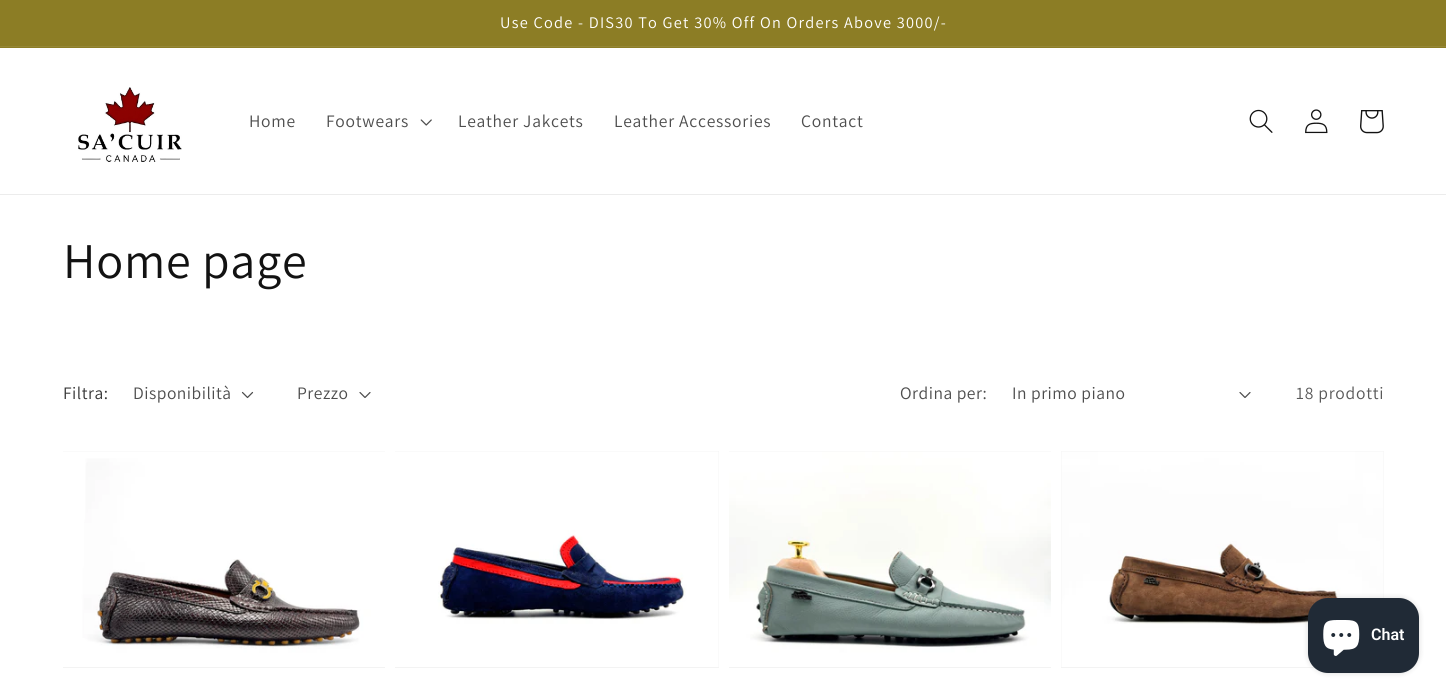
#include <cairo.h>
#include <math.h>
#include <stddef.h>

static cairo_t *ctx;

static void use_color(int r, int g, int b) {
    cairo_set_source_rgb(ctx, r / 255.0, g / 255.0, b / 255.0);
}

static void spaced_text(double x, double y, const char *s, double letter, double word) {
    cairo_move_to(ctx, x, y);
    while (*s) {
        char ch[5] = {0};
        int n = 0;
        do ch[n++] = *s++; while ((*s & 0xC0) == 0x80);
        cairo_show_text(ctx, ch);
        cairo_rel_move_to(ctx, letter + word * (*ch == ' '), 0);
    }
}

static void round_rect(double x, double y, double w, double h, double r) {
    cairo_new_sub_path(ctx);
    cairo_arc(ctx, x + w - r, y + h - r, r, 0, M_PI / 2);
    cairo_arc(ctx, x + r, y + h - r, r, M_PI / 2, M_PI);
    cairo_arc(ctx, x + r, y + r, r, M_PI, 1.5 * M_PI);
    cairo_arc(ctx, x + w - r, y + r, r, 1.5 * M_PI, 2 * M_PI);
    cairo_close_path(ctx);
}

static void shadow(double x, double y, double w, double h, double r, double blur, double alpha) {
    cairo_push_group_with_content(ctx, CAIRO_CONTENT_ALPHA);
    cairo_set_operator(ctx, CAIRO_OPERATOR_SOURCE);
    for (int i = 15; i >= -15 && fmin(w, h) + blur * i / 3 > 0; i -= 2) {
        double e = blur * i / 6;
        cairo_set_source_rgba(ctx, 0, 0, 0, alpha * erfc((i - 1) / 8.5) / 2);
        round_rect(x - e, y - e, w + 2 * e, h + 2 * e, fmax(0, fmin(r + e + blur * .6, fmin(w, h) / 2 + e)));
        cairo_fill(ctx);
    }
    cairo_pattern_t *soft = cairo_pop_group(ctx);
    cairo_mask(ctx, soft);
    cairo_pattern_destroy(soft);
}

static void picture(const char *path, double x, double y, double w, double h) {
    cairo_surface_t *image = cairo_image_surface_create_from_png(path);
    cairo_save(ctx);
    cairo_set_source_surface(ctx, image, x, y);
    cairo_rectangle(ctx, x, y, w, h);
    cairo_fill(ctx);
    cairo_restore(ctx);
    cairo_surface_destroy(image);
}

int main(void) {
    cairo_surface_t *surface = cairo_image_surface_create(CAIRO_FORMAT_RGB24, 1446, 698);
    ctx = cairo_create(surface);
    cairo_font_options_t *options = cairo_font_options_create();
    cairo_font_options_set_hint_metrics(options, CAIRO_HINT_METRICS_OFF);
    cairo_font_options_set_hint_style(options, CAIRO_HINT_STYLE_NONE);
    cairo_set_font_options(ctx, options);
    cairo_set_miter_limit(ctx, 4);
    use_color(255, 255, 255);
    cairo_paint(ctx);
    use_color(140, 125, 37);
    cairo_rectangle(ctx, 0, 0, 1446, 48);
    cairo_fill(ctx);
    use_color(149, 135, 54);
    cairo_rectangle(ctx, 0, 46, 1446, 1);
    cairo_fill(ctx);
    cairo_select_font_face(ctx, "Assistant", CAIRO_FONT_SLANT_NORMAL, CAIRO_FONT_WEIGHT_NORMAL);
    cairo_set_font_size(ctx, 16.25);
    use_color(255, 255, 255);
    spaced_text(500, 28, "Use Code - DIS30 To Get 30% Off On Orders Above 3000/-", 1.25, 0);
    use_color(236, 236, 236);
    cairo_rectangle(ctx, 0, 194, 1446, 1);
    cairo_fill(ctx);
    picture("img1.png", 78, 87, 104, 75);
    cairo_set_font_size(ctx, 17.5);
    use_color(77, 77, 77);
    spaced_text(249, 127, "Home", 0.75, 0);
    spaced_text(326, 127, "Footwears", 0.75, 0);
    picture("img2.png", 420, 119, 12, 7);
    spaced_text(458, 127, "Leather Jakcets", 0.75, 0);
    spaced_text(614, 127, "Leather Accessories", 0.75, 0);
    spaced_text(801, 127, "Contact", 0.75, 0);
    picture("img3.png", 1249, 109, 24, 24);
    picture("img4.png", 1305, 109, 23, 25);
    picture("img5.png", 1360, 110, 24, 24);
    cairo_set_font_size(ctx, 50);
    use_color(18, 18, 18);
    spaced_text(63, 278, "Home page", 0.75, 0);
    cairo_set_font_size(ctx, 17.5);
    use_color(54, 54, 54);
    spaced_text(63, 399, "Filtra:", 0.5, 0);
    use_color(77, 77, 77);
    spaced_text(133, 399, "Disponibilità", 0.5, 0);
    picture("img6.png", 241, 391, 13, 8);
    spaced_text(297, 399, "Prezzo", 0.5, 0);
    picture("img7.png", 359, 392, 12, 6);
    spaced_text(900, 399, "Ordina per:", 0.5, 0);
    spaced_text(1012, 399, "In primo piano", 0.5, 0);
    picture("img7.png", 1239, 392, 12, 6);
    use_color(89, 89, 89);
    spaced_text(1296, 399, "18 prodotti", 0.75, 0);
    use_color(243, 243, 243);
    cairo_rectangle(ctx, 63, 451, 322, 217);
    cairo_fill(ctx);
    picture("img8.png", 63, 451, 322, 216);
    cairo_rectangle(ctx, 395, 451, 324, 217);
    cairo_fill(ctx);
    picture("img9.png", 395, 451, 324, 216);
    cairo_rectangle(ctx, 729, 451, 322, 217);
    cairo_fill(ctx);
    picture("img10.png", 729, 451, 322, 216);
    cairo_rectangle(ctx, 1061, 451, 323, 217);
    cairo_fill(ctx);
    picture("img11.png", 1061, 451, 323, 216);
    use_color(0, 0, 0);
    shadow(1308, 598, 111, 75, 20, 3, 0.15);
    use_color(32, 42, 54);
    round_rect(1308, 598, 111, 75, 20);
    cairo_fill(ctx);
    picture("img12.png", 1323, 620, 37, 36);
    cairo_select_font_face(ctx, "Roboto SemiBold", CAIRO_FONT_SLANT_NORMAL, CAIRO_FONT_WEIGHT_NORMAL);
    cairo_set_font_size(ctx, 16);
    use_color(255, 255, 255);
    cairo_move_to(ctx, 1371, 640);
    cairo_show_text(ctx, "Chat");
    cairo_surface_write_to_png(surface, "result.png");
    cairo_font_options_destroy(options);
    cairo_destroy(ctx);
    cairo_surface_destroy(surface);
    return 0;
}
